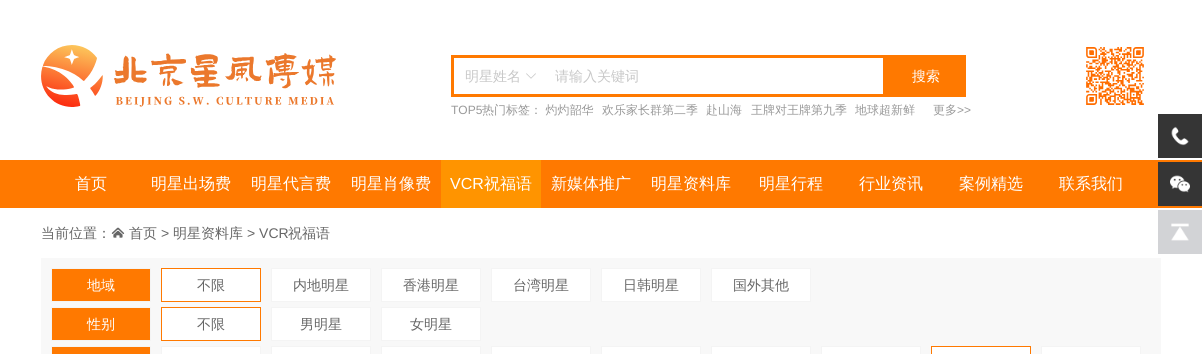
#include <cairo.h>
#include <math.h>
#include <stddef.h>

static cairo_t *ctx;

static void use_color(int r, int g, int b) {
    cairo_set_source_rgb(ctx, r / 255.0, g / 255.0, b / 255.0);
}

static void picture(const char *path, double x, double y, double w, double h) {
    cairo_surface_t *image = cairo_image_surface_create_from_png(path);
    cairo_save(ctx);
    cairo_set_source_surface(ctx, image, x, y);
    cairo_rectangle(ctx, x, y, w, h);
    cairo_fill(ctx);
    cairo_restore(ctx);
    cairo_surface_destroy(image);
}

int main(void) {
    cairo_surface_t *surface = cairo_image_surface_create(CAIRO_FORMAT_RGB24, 1202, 354);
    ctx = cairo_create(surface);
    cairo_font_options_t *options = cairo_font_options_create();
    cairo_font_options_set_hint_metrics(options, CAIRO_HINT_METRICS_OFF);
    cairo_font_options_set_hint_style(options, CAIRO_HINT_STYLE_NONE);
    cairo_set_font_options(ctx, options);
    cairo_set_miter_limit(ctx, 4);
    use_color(255, 255, 255);
    cairo_paint(ctx);
    picture("img1.png", 41, 45, 295, 62);
    use_color(255, 121, 0);
    cairo_rectangle(ctx, 451, 55, 515, 42);
    cairo_fill(ctx);
    use_color(255, 255, 255);
    cairo_rectangle(ctx, 454, 58, 429, 36);
    cairo_fill(ctx);
    cairo_select_font_face(ctx, "WenQuanYi Zen Hei Medium", CAIRO_FONT_SLANT_NORMAL, CAIRO_FONT_WEIGHT_NORMAL);
    cairo_set_font_size(ctx, 14);
    use_color(200, 200, 200);
    cairo_move_to(ctx, 465, 81);
    cairo_show_text(ctx, "明星姓名");
    picture("img2.png", 526, 73, 10, 6);
    cairo_move_to(ctx, 555, 81);
    cairo_show_text(ctx, "请输入关键词");
    use_color(255, 255, 255);
    cairo_move_to(ctx, 912, 81);
    cairo_show_text(ctx, "搜索");
    picture("img3.png", 1086, 47, 58, 58);
    cairo_select_font_face(ctx, "Liberation Sans", CAIRO_FONT_SLANT_NORMAL, CAIRO_FONT_WEIGHT_NORMAL);
    cairo_set_font_size(ctx, 12);
    use_color(153, 153, 153);
    cairo_move_to(ctx, 451, 114);
    cairo_show_text(ctx, "TOP5");
    cairo_select_font_face(ctx, "WenQuanYi Zen Hei Medium", CAIRO_FONT_SLANT_NORMAL, CAIRO_FONT_WEIGHT_NORMAL);
    cairo_move_to(ctx, 482, 114);
    cairo_show_text(ctx, "热门标签： 灼灼韶华");
    cairo_move_to(ctx, 602, 114);
    cairo_show_text(ctx, "欢乐家长群第二季");
    cairo_move_to(ctx, 706, 114);
    cairo_show_text(ctx, "赴山海");
    cairo_move_to(ctx, 751, 114);
    cairo_show_text(ctx, "王牌对王牌第九季");
    cairo_move_to(ctx, 855, 114);
    cairo_show_text(ctx, "地球超新鲜");
    cairo_move_to(ctx, 933, 114);
    cairo_show_text(ctx, "更多");
    cairo_select_font_face(ctx, "Liberation Sans", CAIRO_FONT_SLANT_NORMAL, CAIRO_FONT_WEIGHT_NORMAL);
    cairo_move_to(ctx, 957, 114);
    cairo_show_text(ctx, ">>");
    use_color(255, 121, 0);
    cairo_rectangle(ctx, 0, 160, 1202, 48);
    cairo_fill(ctx);
    cairo_select_font_face(ctx, "WenQuanYi Zen Hei Medium", CAIRO_FONT_SLANT_NORMAL, CAIRO_FONT_WEIGHT_NORMAL);
    cairo_set_font_size(ctx, 16);
    use_color(255, 255, 255);
    cairo_move_to(ctx, 75, 189);
    cairo_show_text(ctx, "首页");
    cairo_move_to(ctx, 151, 189);
    cairo_show_text(ctx, "明星出场费");
    cairo_move_to(ctx, 251, 189);
    cairo_show_text(ctx, "明星代言费");
    cairo_move_to(ctx, 351, 189);
    cairo_show_text(ctx, "明星肖像费");
    use_color(255, 148, 0);
    cairo_rectangle(ctx, 441, 160, 100, 48);
    cairo_fill(ctx);
    cairo_select_font_face(ctx, "Liberation Sans", CAIRO_FONT_SLANT_NORMAL, CAIRO_FONT_WEIGHT_NORMAL);
    use_color(255, 255, 255);
    cairo_move_to(ctx, 450, 189);
    cairo_show_text(ctx, "VCR");
    cairo_select_font_face(ctx, "WenQuanYi Zen Hei Medium", CAIRO_FONT_SLANT_NORMAL, CAIRO_FONT_WEIGHT_NORMAL);
    cairo_move_to(ctx, 484, 189);
    cairo_show_text(ctx, "祝福语");
    cairo_move_to(ctx, 551, 189);
    cairo_show_text(ctx, "新媒体推广");
    cairo_move_to(ctx, 651, 189);
    cairo_show_text(ctx, "明星资料库");
    cairo_move_to(ctx, 759, 189);
    cairo_show_text(ctx, "明星行程");
    cairo_move_to(ctx, 859, 189);
    cairo_show_text(ctx, "行业资讯");
    cairo_move_to(ctx, 959, 189);
    cairo_show_text(ctx, "案例精选");
    cairo_move_to(ctx, 1059, 189);
    cairo_show_text(ctx, "联系我们");
    use_color(53, 53, 53);
    cairo_rectangle(ctx, 1158, 114, 44, 44);
    cairo_fill(ctx);
    picture("img4.png", 1171, 126, 18, 20);
    cairo_rectangle(ctx, 1158, 162, 44, 44);
    cairo_fill(ctx);
    picture("img5.png", 1170, 175, 20, 18);
    use_color(210, 211, 214);
    cairo_rectangle(ctx, 1158, 210, 44, 44);
    cairo_fill(ctx);
    picture("img6.png", 1171, 223, 18, 18);
    cairo_set_font_size(ctx, 14);
    use_color(102, 102, 102);
    cairo_move_to(ctx, 41, 238);
    cairo_show_text(ctx, "当前位置：");
    picture("img7.png", 111, 227, 14, 11);
    cairo_move_to(ctx, 129, 238);
    cairo_show_text(ctx, "首页");
    cairo_select_font_face(ctx, "Liberation Sans", CAIRO_FONT_SLANT_NORMAL, CAIRO_FONT_WEIGHT_NORMAL);
    cairo_move_to(ctx, 161, 238);
    cairo_show_text(ctx, ">");
    cairo_select_font_face(ctx, "WenQuanYi Zen Hei Medium", CAIRO_FONT_SLANT_NORMAL, CAIRO_FONT_WEIGHT_NORMAL);
    cairo_move_to(ctx, 173, 238);
    cairo_show_text(ctx, "明星资料库");
    cairo_select_font_face(ctx, "Liberation Sans", CAIRO_FONT_SLANT_NORMAL, CAIRO_FONT_WEIGHT_NORMAL);
    cairo_move_to(ctx, 247, 238);
    cairo_show_text(ctx, "> VCR");
    cairo_select_font_face(ctx, "WenQuanYi Zen Hei Medium", CAIRO_FONT_SLANT_NORMAL, CAIRO_FONT_WEIGHT_NORMAL);
    cairo_move_to(ctx, 288, 238);
    cairo_show_text(ctx, "祝福语");
    use_color(248, 248, 248);
    cairo_rectangle(ctx, 41, 258, 1120, 96);
    cairo_fill(ctx);
    use_color(255, 121, 0);
    cairo_rectangle(ctx, 51.5, 268.5, 99, 33);
    cairo_fill_preserve(ctx);
    use_color(244, 244, 244);
    cairo_set_line_width(ctx, 1);
    cairo_stroke(ctx);
    use_color(255, 255, 255);
    cairo_move_to(ctx, 87, 290);
    cairo_show_text(ctx, "地域");
    cairo_rectangle(ctx, 161.5, 268.5, 99, 33);
    cairo_fill_preserve(ctx);
    use_color(255, 121, 0);
    cairo_stroke(ctx);
    use_color(102, 102, 102);
    cairo_move_to(ctx, 197, 290);
    cairo_show_text(ctx, "不限");
    use_color(255, 255, 255);
    cairo_rectangle(ctx, 271.5, 268.5, 99, 33);
    cairo_fill_preserve(ctx);
    use_color(244, 244, 244);
    cairo_stroke(ctx);
    use_color(102, 102, 102);
    cairo_move_to(ctx, 293, 290);
    cairo_show_text(ctx, "内地明星");
    use_color(255, 255, 255);
    cairo_rectangle(ctx, 381.5, 268.5, 99, 33);
    cairo_fill_preserve(ctx);
    use_color(244, 244, 244);
    cairo_stroke(ctx);
    use_color(102, 102, 102);
    cairo_move_to(ctx, 403, 290);
    cairo_show_text(ctx, "香港明星");
    use_color(255, 255, 255);
    cairo_rectangle(ctx, 491.5, 268.5, 99, 33);
    cairo_fill_preserve(ctx);
    use_color(244, 244, 244);
    cairo_stroke(ctx);
    use_color(102, 102, 102);
    cairo_move_to(ctx, 513, 290);
    cairo_show_text(ctx, "台湾明星");
    use_color(255, 255, 255);
    cairo_rectangle(ctx, 601.5, 268.5, 99, 33);
    cairo_fill_preserve(ctx);
    use_color(244, 244, 244);
    cairo_stroke(ctx);
    use_color(102, 102, 102);
    cairo_move_to(ctx, 623, 290);
    cairo_show_text(ctx, "日韩明星");
    use_color(255, 255, 255);
    cairo_rectangle(ctx, 711.5, 268.5, 99, 33);
    cairo_fill_preserve(ctx);
    use_color(244, 244, 244);
    cairo_stroke(ctx);
    use_color(102, 102, 102);
    cairo_move_to(ctx, 733, 290);
    cairo_show_text(ctx, "国外其他");
    use_color(255, 121, 0);
    cairo_rectangle(ctx, 51.5, 307.5, 99, 33);
    cairo_fill_preserve(ctx);
    use_color(244, 244, 244);
    cairo_stroke(ctx);
    use_color(255, 255, 255);
    cairo_move_to(ctx, 87, 329);
    cairo_show_text(ctx, "性别");
    cairo_rectangle(ctx, 161.5, 307.5, 99, 33);
    cairo_fill_preserve(ctx);
    use_color(255, 121, 0);
    cairo_stroke(ctx);
    use_color(102, 102, 102);
    cairo_move_to(ctx, 197, 329);
    cairo_show_text(ctx, "不限");
    use_color(255, 255, 255);
    cairo_rectangle(ctx, 271.5, 307.5, 99, 33);
    cairo_fill_preserve(ctx);
    use_color(244, 244, 244);
    cairo_stroke(ctx);
    use_color(102, 102, 102);
    cairo_move_to(ctx, 300, 329);
    cairo_show_text(ctx, "男明星");
    use_color(255, 255, 255);
    cairo_rectangle(ctx, 381.5, 307.5, 99, 33);
    cairo_fill_preserve(ctx);
    use_color(244, 244, 244);
    cairo_stroke(ctx);
    use_color(102, 102, 102);
    cairo_move_to(ctx, 410, 329);
    cairo_show_text(ctx, "女明星");
    use_color(255, 121, 0);
    cairo_rectangle(ctx, 51.5, 346.5, 99, 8);
    cairo_fill_preserve(ctx);
    use_color(244, 244, 244);
    cairo_stroke(ctx);
    use_color(255, 255, 255);
    cairo_rectangle(ctx, 161.5, 346.5, 99, 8);
    cairo_fill_preserve(ctx);
    use_color(244, 244, 244);
    cairo_stroke(ctx);
    use_color(255, 255, 255);
    cairo_rectangle(ctx, 271.5, 346.5, 99, 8);
    cairo_fill_preserve(ctx);
    use_color(244, 244, 244);
    cairo_stroke(ctx);
    use_color(255, 255, 255);
    cairo_rectangle(ctx, 381.5, 346.5, 99, 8);
    cairo_fill_preserve(ctx);
    use_color(244, 244, 244);
    cairo_stroke(ctx);
    use_color(255, 255, 255);
    cairo_rectangle(ctx, 491.5, 346.5, 99, 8);
    cairo_fill_preserve(ctx);
    use_color(244, 244, 244);
    cairo_stroke(ctx);
    use_color(255, 255, 255);
    cairo_rectangle(ctx, 601.5, 346.5, 99, 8);
    cairo_fill_preserve(ctx);
    use_color(244, 244, 244);
    cairo_stroke(ctx);
    use_color(255, 255, 255);
    cairo_rectangle(ctx, 711.5, 346.5, 99, 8);
    cairo_fill_preserve(ctx);
    use_color(244, 244, 244);
    cairo_stroke(ctx);
    use_color(255, 255, 255);
    cairo_rectangle(ctx, 821.5, 346.5, 99, 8);
    cairo_fill_preserve(ctx);
    use_color(244, 244, 244);
    cairo_stroke(ctx);
    use_color(255, 255, 255);
    cairo_rectangle(ctx, 931.5, 346.5, 99, 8);
    cairo_fill_preserve(ctx);
    use_color(255, 121, 0);
    cairo_stroke(ctx);
    use_color(255, 255, 255);
    cairo_rectangle(ctx, 1041.5, 346.5, 99, 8);
    cairo_fill_preserve(ctx);
    use_color(244, 244, 244);
    cairo_stroke(ctx);
    cairo_surface_write_to_png(surface, "result.png");
    cairo_font_options_destroy(options);
    cairo_destroy(ctx);
    cairo_surface_destroy(surface);
    return 0;
}
